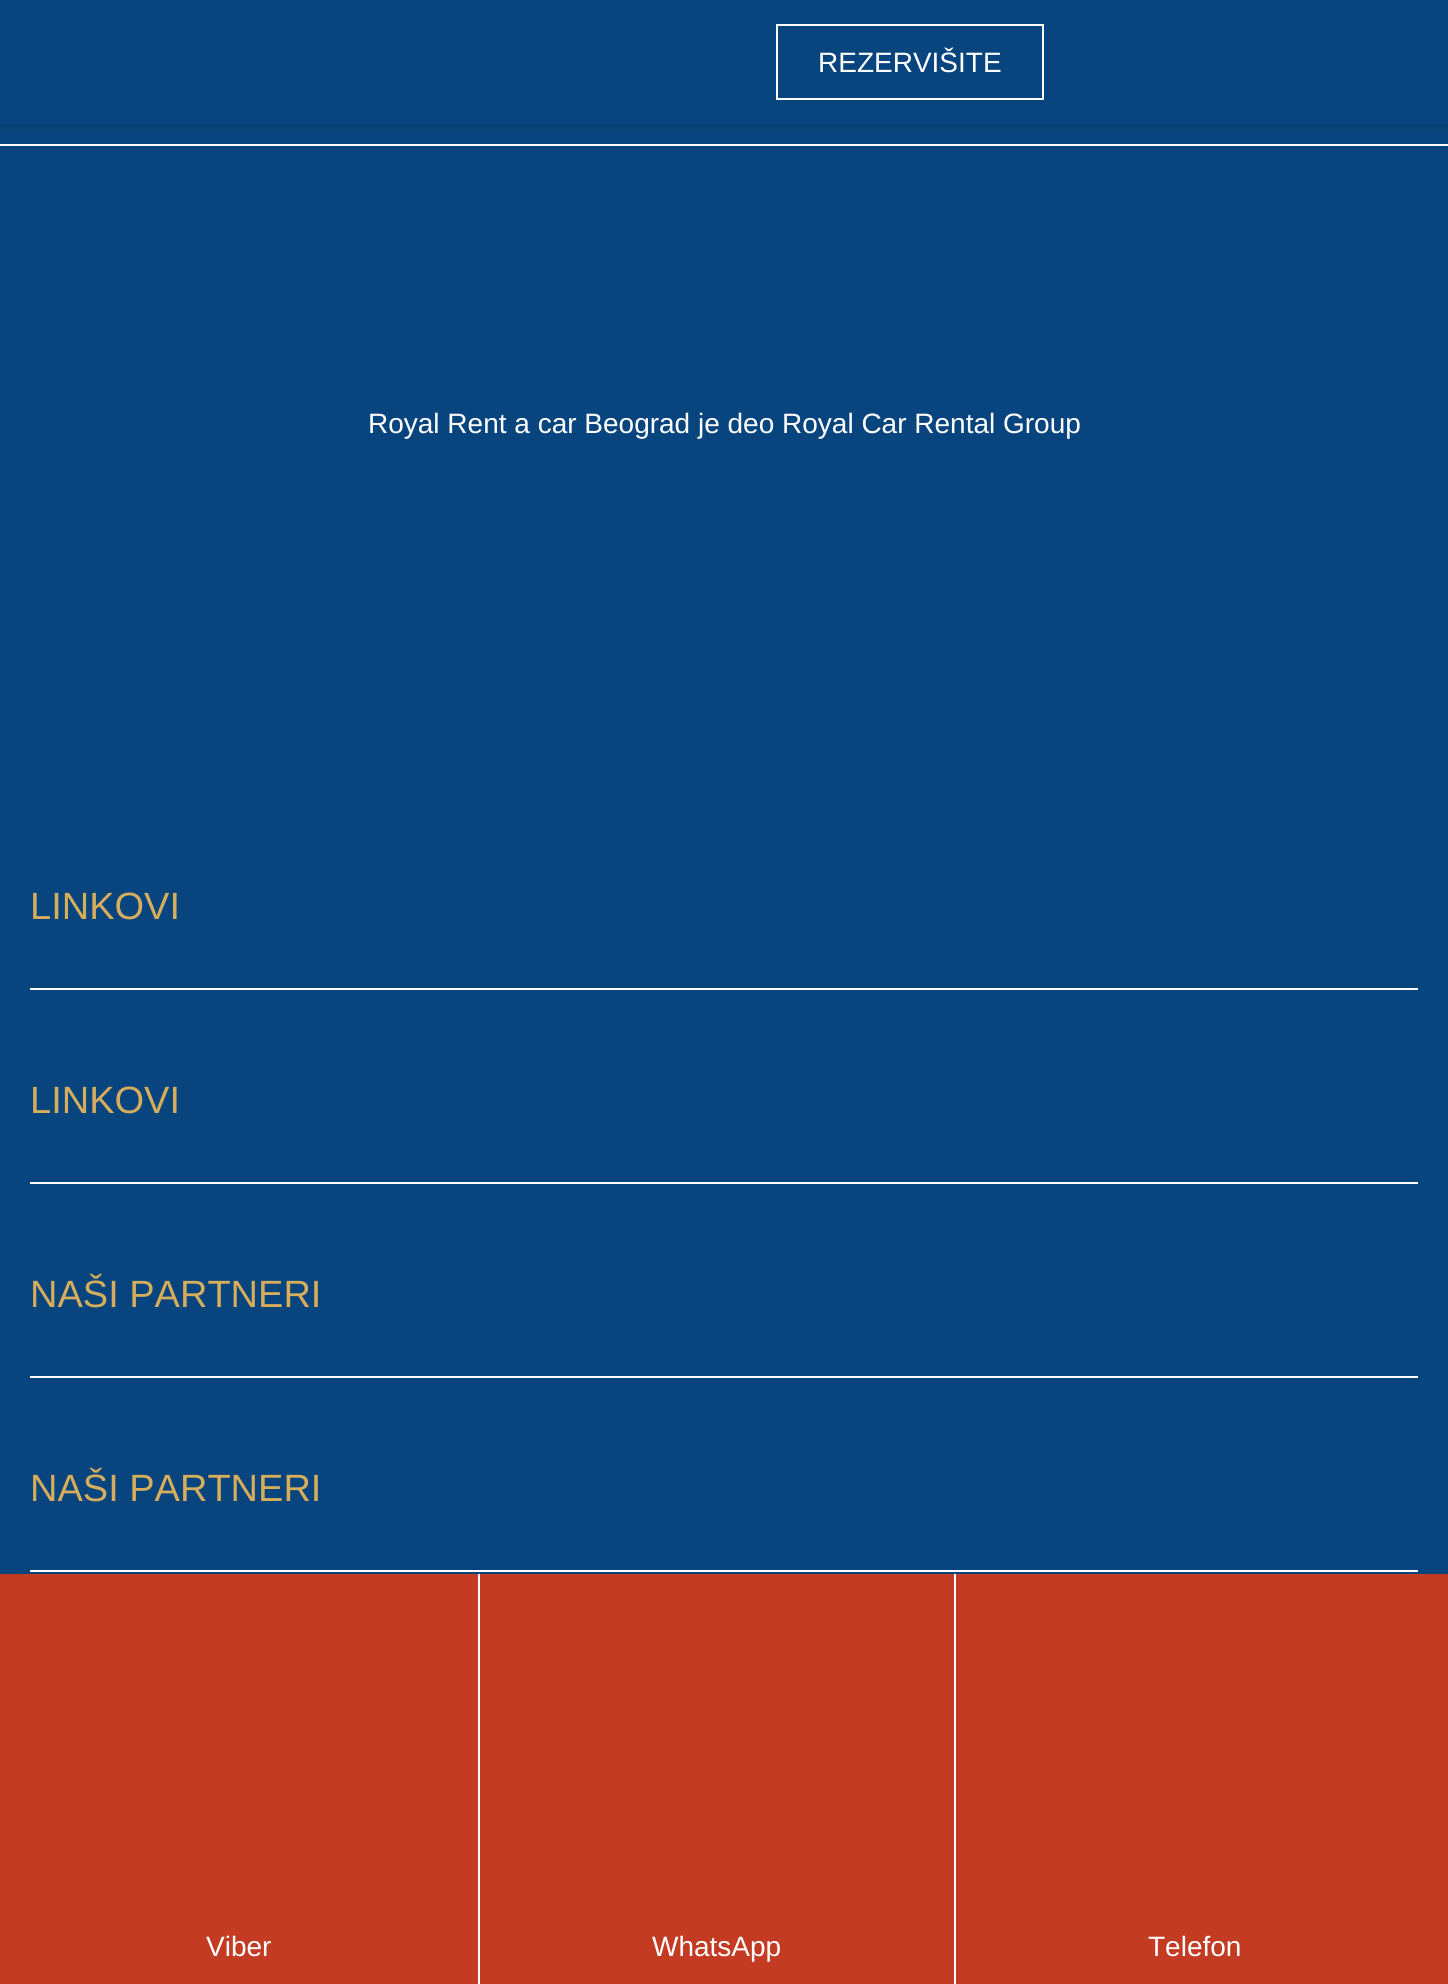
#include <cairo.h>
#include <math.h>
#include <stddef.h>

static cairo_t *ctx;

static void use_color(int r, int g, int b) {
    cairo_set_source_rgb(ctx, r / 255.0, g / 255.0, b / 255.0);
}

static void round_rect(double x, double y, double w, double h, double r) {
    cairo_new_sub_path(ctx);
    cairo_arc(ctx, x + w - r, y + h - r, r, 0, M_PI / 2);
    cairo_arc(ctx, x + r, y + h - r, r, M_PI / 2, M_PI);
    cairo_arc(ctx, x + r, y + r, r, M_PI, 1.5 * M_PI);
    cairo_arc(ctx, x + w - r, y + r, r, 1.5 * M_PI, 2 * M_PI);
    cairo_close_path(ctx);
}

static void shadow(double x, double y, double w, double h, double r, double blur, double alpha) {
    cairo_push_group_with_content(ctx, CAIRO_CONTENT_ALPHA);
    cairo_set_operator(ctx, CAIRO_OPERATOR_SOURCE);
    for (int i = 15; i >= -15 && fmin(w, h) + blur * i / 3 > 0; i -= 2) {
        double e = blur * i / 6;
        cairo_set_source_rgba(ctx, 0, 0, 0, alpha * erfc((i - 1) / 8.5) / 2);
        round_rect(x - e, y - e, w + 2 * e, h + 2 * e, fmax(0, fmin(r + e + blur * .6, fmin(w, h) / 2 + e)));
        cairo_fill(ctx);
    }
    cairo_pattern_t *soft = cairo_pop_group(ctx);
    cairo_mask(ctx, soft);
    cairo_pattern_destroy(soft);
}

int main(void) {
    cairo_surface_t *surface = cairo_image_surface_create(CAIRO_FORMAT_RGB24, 1448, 1984);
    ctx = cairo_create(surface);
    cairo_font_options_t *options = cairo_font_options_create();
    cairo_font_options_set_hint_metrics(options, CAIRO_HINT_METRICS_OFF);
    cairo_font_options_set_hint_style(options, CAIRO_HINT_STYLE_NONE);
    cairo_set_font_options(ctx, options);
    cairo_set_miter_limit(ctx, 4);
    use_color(8, 69, 126);
    cairo_paint(ctx);
    use_color(0, 0, 0);
    shadow(0, 4, 1448, 124, 0, 4, 0.1);
    use_color(8, 69, 126);
    cairo_rectangle(ctx, 0, 1, 1448, 123);
    cairo_fill(ctx);
    cairo_rectangle(ctx, 777, 25, 266, 74);
    use_color(255, 255, 255);
    cairo_stroke(ctx);
    cairo_select_font_face(ctx, "Liberation Sans", CAIRO_FONT_SLANT_NORMAL, CAIRO_FONT_WEIGHT_NORMAL);
    cairo_set_font_size(ctx, 28);
    cairo_move_to(ctx, 818, 72);
    cairo_show_text(ctx, "REZERVIŠITE");
    cairo_rectangle(ctx, 0, 144, 1448, 2);
    cairo_fill(ctx);
    cairo_move_to(ctx, 368, 433);
    cairo_show_text(ctx, "Royal Rent a car Beograd je deo Royal Car Rental Group");
    cairo_rectangle(ctx, 30, 988, 1388, 2);
    cairo_fill(ctx);
    cairo_set_font_size(ctx, 38);
    use_color(214, 173, 91);
    cairo_move_to(ctx, 30, 919);
    cairo_show_text(ctx, "LINKOVI");
    use_color(255, 255, 255);
    cairo_rectangle(ctx, 30, 1182, 1388, 2);
    cairo_fill(ctx);
    use_color(214, 173, 91);
    cairo_move_to(ctx, 30, 1113);
    cairo_show_text(ctx, "LINKOVI");
    use_color(255, 255, 255);
    cairo_rectangle(ctx, 30, 1376, 1388, 2);
    cairo_fill(ctx);
    use_color(214, 173, 91);
    cairo_move_to(ctx, 30, 1307);
    cairo_show_text(ctx, "NAŠI PARTNERI");
    use_color(255, 255, 255);
    cairo_rectangle(ctx, 30, 1570, 1388, 2);
    cairo_fill(ctx);
    use_color(214, 173, 91);
    cairo_move_to(ctx, 30, 1501);
    cairo_show_text(ctx, "NAŠI PARTNERI");
    use_color(194, 59, 34);
    cairo_rectangle(ctx, 0, 1574, 1448, 410);
    cairo_fill(ctx);
    cairo_set_font_size(ctx, 28);
    use_color(255, 255, 255);
    cairo_move_to(ctx, 206, 1956);
    cairo_show_text(ctx, "Viber");
    cairo_rectangle(ctx, 954, 1574, 2, 410);
    cairo_fill(ctx);
    cairo_rectangle(ctx, 478, 1574, 2, 410);
    cairo_fill(ctx);
    cairo_move_to(ctx, 652, 1956);
    cairo_show_text(ctx, "WhatsApp");
    cairo_move_to(ctx, 1148, 1956);
    cairo_show_text(ctx, "Telefon");
    cairo_surface_write_to_png(surface, "result.png");
    cairo_font_options_destroy(options);
    cairo_destroy(ctx);
    cairo_surface_destroy(surface);
    return 0;
}
